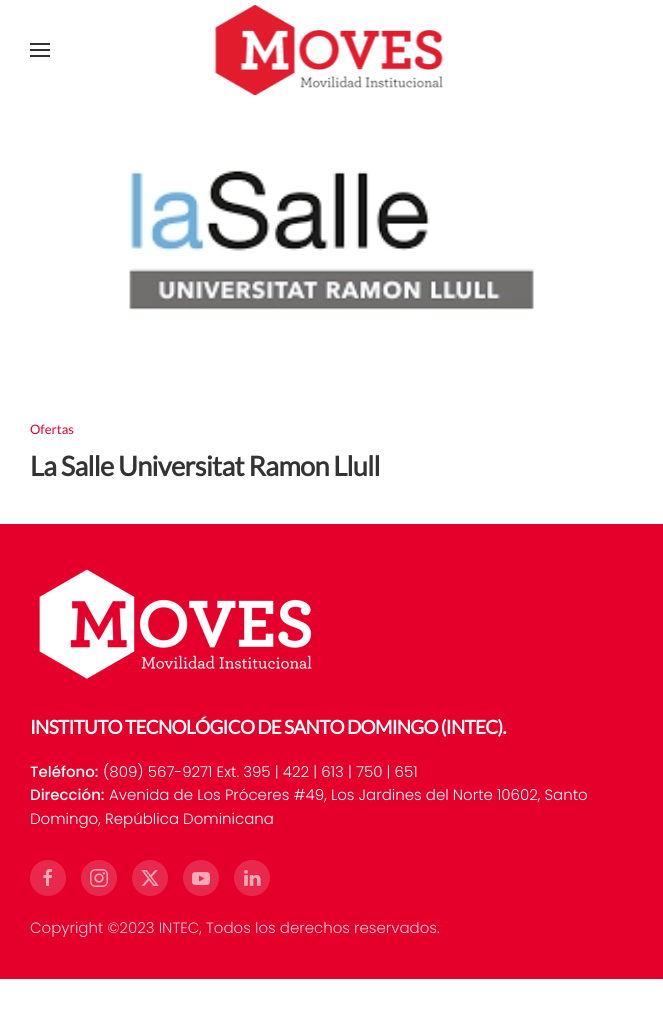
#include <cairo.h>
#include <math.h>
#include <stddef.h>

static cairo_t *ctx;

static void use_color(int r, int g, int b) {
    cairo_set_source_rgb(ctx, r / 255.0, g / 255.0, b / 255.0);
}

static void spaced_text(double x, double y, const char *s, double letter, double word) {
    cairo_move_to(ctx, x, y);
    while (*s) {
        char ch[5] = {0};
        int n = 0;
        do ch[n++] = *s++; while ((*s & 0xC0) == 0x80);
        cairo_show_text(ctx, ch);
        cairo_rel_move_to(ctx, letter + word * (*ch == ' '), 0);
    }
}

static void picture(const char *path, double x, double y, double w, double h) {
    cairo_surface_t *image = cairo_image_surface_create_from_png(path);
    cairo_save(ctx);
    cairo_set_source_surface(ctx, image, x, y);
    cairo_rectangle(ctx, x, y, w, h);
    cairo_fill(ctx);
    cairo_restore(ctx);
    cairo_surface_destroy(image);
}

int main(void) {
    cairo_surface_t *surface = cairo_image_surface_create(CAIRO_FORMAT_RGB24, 663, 1031);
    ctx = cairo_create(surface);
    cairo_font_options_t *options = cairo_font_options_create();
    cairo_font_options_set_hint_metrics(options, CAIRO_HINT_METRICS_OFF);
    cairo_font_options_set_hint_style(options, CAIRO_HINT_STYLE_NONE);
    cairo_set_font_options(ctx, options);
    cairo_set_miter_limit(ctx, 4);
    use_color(255, 255, 255);
    cairo_paint(ctx);
    use_color(51, 51, 51);
    cairo_rectangle(ctx, 30, 43, 20, 2);
    cairo_fill(ctx);
    cairo_rectangle(ctx, 30, 49, 20, 2);
    cairo_fill(ctx);
    cairo_rectangle(ctx, 30, 55, 20, 2);
    cairo_fill(ctx);
    picture("img1.png", 214, 4, 230, 92);
    picture("img2.png", 128, 170, 406, 140);
    cairo_select_font_face(ctx, "Lato", CAIRO_FONT_SLANT_NORMAL, CAIRO_FONT_WEIGHT_NORMAL);
    cairo_set_font_size(ctx, 13);
    use_color(228, 0, 43);
    cairo_move_to(ctx, 30, 434);
    cairo_show_text(ctx, "Ofertas");
    cairo_select_font_face(ctx, "Lato", CAIRO_FONT_SLANT_NORMAL, CAIRO_FONT_WEIGHT_BOLD);
    cairo_set_font_size(ctx, 27.25);
    use_color(51, 51, 51);
    spaced_text(30, 476, "La Salle Universitat Ramon Llull", -0.75, 0);
    use_color(228, 0, 43);
    cairo_rectangle(ctx, 0, 524, 663, 455);
    cairo_fill(ctx);
    picture("img3.png", 39, 569, 273, 110);
    cairo_set_font_size(ctx, 19);
    use_color(255, 255, 255);
    spaced_text(30, 734, "INSTITUTO TECNOLÓGICO DE SANTO DOMINGO (INTEC).", -0.75, 0);
    cairo_select_font_face(ctx, "Poppins Medium", CAIRO_FONT_SLANT_NORMAL, CAIRO_FONT_WEIGHT_NORMAL);
    cairo_set_font_size(ctx, 15);
    cairo_move_to(ctx, 30, 777);
    cairo_show_text(ctx, "Teléfono:");
    cairo_select_font_face(ctx, "Poppins Light", CAIRO_FONT_SLANT_NORMAL, CAIRO_FONT_WEIGHT_NORMAL);
    cairo_move_to(ctx, 103, 777);
    cairo_show_text(ctx, "(809) 567-9271 Ext. 395 | 422 | 613 | 750 | 651");
    cairo_select_font_face(ctx, "Poppins Medium", CAIRO_FONT_SLANT_NORMAL, CAIRO_FONT_WEIGHT_NORMAL);
    cairo_move_to(ctx, 30, 800);
    cairo_show_text(ctx, "Dirección:");
    cairo_select_font_face(ctx, "Poppins Light", CAIRO_FONT_SLANT_NORMAL, CAIRO_FONT_WEIGHT_NORMAL);
    cairo_move_to(ctx, 109, 800);
    cairo_show_text(ctx, "Avenida de Los Próceres #49, Los Jardines del Norte 10602, Santo");
    cairo_move_to(ctx, 30, 824);
    cairo_show_text(ctx, "Domingo, República Dominicana");
    use_color(232, 41, 77);
    cairo_new_path(ctx);
    cairo_arc(ctx, 48, 878, 18, 0, 2 * M_PI);
    cairo_fill(ctx);
    picture("img4.png", 43, 869, 9, 17);
    cairo_arc(ctx, 99, 878, 18, 0, 2 * M_PI);
    cairo_fill(ctx);
    picture("img5.png", 90, 869, 18, 18);
    cairo_arc(ctx, 150, 878, 18, 0, 2 * M_PI);
    cairo_fill(ctx);
    picture("img6.png", 141, 870, 18, 16);
    cairo_arc(ctx, 201, 878, 18, 0, 2 * M_PI);
    cairo_fill(ctx);
    picture("img7.png", 192, 872, 18, 14);
    cairo_arc(ctx, 252, 878, 18, 0, 2 * M_PI);
    cairo_fill(ctx);
    picture("img8.png", 244, 870, 17, 16);
    use_color(250, 204, 213);
    cairo_move_to(ctx, 30, 933);
    cairo_show_text(ctx, "Copyright ©2023 INTEC, Todos los derechos reservados.");
    cairo_surface_write_to_png(surface, "result.png");
    cairo_font_options_destroy(options);
    cairo_destroy(ctx);
    cairo_surface_destroy(surface);
    return 0;
}
